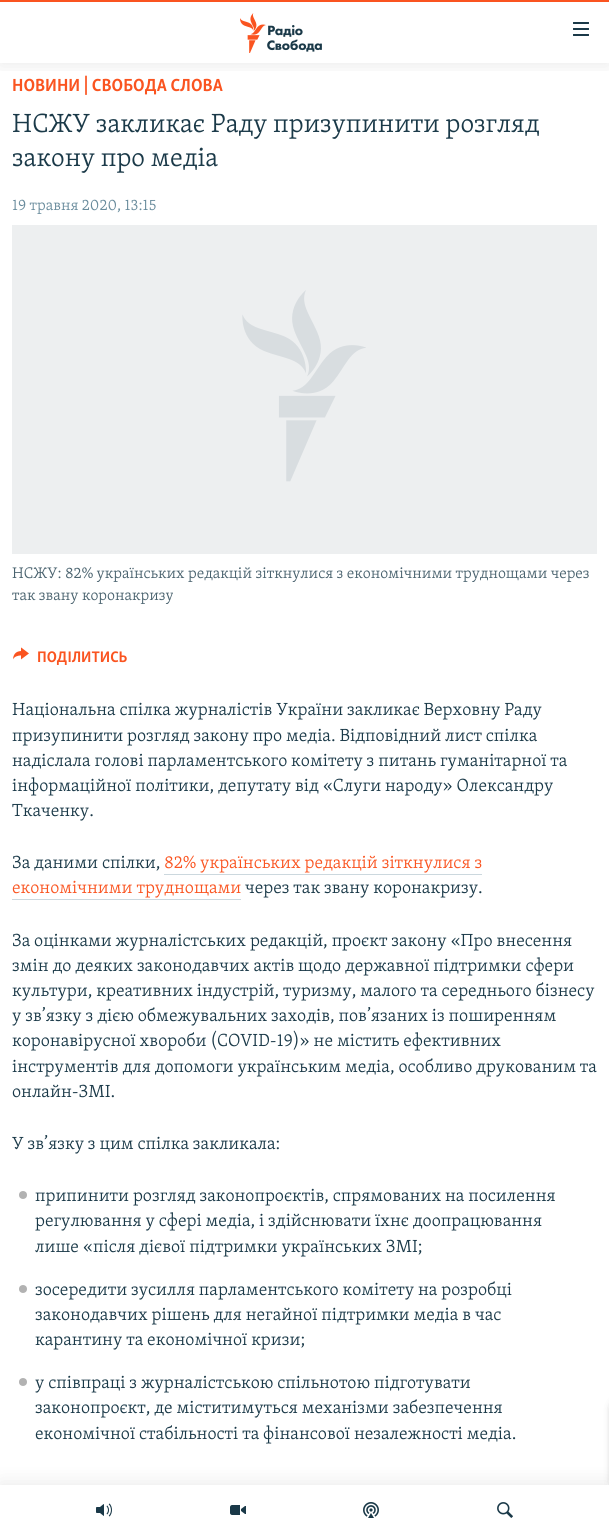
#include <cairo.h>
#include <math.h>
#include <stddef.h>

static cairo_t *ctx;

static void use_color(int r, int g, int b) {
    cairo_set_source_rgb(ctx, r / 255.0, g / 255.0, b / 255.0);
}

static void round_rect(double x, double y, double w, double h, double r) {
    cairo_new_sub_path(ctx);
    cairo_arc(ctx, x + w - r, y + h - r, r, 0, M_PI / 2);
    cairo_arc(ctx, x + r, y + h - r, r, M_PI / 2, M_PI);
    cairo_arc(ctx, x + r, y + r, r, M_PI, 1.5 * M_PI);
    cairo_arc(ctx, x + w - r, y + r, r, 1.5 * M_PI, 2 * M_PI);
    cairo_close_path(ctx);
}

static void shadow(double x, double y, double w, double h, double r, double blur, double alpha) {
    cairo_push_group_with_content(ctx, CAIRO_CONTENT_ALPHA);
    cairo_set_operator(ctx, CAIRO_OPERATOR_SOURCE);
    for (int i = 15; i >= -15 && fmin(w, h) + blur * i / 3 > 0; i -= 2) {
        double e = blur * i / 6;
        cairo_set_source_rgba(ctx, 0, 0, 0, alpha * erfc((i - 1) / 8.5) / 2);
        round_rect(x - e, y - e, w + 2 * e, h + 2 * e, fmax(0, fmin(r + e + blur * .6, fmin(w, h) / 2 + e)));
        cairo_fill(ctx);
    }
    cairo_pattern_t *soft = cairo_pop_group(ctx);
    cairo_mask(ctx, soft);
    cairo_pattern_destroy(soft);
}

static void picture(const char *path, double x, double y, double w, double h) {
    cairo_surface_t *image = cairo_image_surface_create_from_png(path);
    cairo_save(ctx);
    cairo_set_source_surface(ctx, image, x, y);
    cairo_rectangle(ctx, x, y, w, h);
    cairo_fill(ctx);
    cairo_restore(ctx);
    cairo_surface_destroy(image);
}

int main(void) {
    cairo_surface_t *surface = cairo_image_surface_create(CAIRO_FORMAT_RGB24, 609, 1535);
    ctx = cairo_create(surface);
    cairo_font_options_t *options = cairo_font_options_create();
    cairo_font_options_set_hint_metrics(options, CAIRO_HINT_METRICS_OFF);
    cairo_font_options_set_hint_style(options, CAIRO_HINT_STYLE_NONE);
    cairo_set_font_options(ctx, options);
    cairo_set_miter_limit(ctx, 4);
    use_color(255, 255, 255);
    cairo_paint(ctx);
    cairo_save(ctx);
    cairo_rectangle(ctx, 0, 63, 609, 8);
    cairo_clip(ctx);
    use_color(0, 0, 0);
    shadow(0, 0, 609, 63, 0, 10, 0.1);
    cairo_restore(ctx);
    use_color(250, 84, 32);
    cairo_rectangle(ctx, 0, 0, 609, 2);
    cairo_fill(ctx);
    picture("img1.png", 240, 13, 82, 40);
    picture("img2.png", 573, 22, 16, 14);
    use_color(0, 0, 0);
    shadow(0, 1485, 609, 50, 0, 10, 0.1);
    shadow(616, 1404, 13, 81, 5, 5, 0.85);
    use_color(255, 255, 255);
    cairo_rectangle(ctx, 0, 1485, 609, 50);
    cairo_fill(ctx);
    picture("img3.png", 96, 1503, 16, 14);
    picture("img4.png", 230, 1505, 16, 10);
    picture("img5.png", 363, 1502, 16, 16);
    picture("img6.png", 497, 1502, 16, 16);
    cairo_select_font_face(ctx, "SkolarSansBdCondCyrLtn", CAIRO_FONT_SLANT_NORMAL, CAIRO_FONT_WEIGHT_BOLD);
    cairo_set_font_size(ctx, 18);
    use_color(250, 84, 32);
    cairo_move_to(ctx, 12, 91);
    cairo_show_text(ctx, "НОВИНИ | СВОБОДА СЛОВА");
    cairo_select_font_face(ctx, "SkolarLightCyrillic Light", CAIRO_FONT_SLANT_NORMAL, CAIRO_FONT_WEIGHT_NORMAL);
    cairo_set_font_size(ctx, 27);
    use_color(26, 57, 72);
    cairo_move_to(ctx, 12, 132);
    cairo_show_text(ctx, "НСЖУ закликає Раду призупинити розгляд");
    cairo_move_to(ctx, 12, 166);
    cairo_show_text(ctx, "закону про медіа");
    cairo_set_font_size(ctx, 15.75);
    use_color(103, 138, 155);
    cairo_move_to(ctx, 12, 210);
    cairo_show_text(ctx, "19 травня 2020, 13:15");
    use_color(237, 239, 240);
    cairo_rectangle(ctx, 12, 225, 585, 329);
    cairo_fill(ctx);
    picture("img7.png", 242, 290, 124, 192);
    use_color(72, 97, 109);
    cairo_move_to(ctx, 12, 578);
    cairo_show_text(ctx, "НСЖУ: 82% українських редакцій зіткнулися з економічними труднощами через");
    cairo_move_to(ctx, 12, 600);
    cairo_show_text(ctx, "так звану коронакризу");
    picture("img8.png", 13, 647, 16, 13);
    cairo_select_font_face(ctx, "SkolarSansBdCondCyrLtn", CAIRO_FONT_SLANT_NORMAL, CAIRO_FONT_WEIGHT_BOLD);
    use_color(250, 84, 32);
    cairo_move_to(ctx, 37, 662);
    cairo_show_text(ctx, "ПОДІЛИТИСЬ");
    cairo_select_font_face(ctx, "SkolarLightCyrillic Light", CAIRO_FONT_SLANT_NORMAL, CAIRO_FONT_WEIGHT_NORMAL);
    cairo_set_font_size(ctx, 18);
    use_color(26, 57, 72);
    cairo_move_to(ctx, 12, 715);
    cairo_show_text(ctx, "Національна спілка журналістів України закликає Верховну Раду");
    cairo_move_to(ctx, 12, 741);
    cairo_show_text(ctx, "призупинити розгляд закону про медіа. Відповідний лист спілка");
    cairo_move_to(ctx, 12, 766);
    cairo_show_text(ctx, "надіслала голові парламентського комітету з питань гуманітарної та");
    cairo_move_to(ctx, 12, 791);
    cairo_show_text(ctx, "інформаційної політики, депутату від «Слуги народу» Олександру");
    cairo_move_to(ctx, 12, 816);
    cairo_show_text(ctx, "Ткаченку.");
    cairo_move_to(ctx, 12, 868);
    cairo_show_text(ctx, "За даними спілки,");
    use_color(250, 84, 32);
    cairo_move_to(ctx, 164, 868);
    cairo_show_text(ctx, "82% українських редакцій зіткнулися з");
    use_color(204, 216, 222);
    cairo_rectangle(ctx, 164, 874, 318, 1);
    cairo_fill(ctx);
    use_color(250, 84, 32);
    cairo_move_to(ctx, 12, 893);
    cairo_show_text(ctx, "економічними труднощами");
    use_color(204, 216, 222);
    cairo_rectangle(ctx, 12, 899, 229, 1);
    cairo_fill(ctx);
    use_color(26, 57, 72);
    cairo_move_to(ctx, 245, 893);
    cairo_show_text(ctx, "через так звану коронакризу.");
    cairo_move_to(ctx, 12, 946);
    cairo_show_text(ctx, "За оцінками журналістських редакцій, проєкт закону «Про внесення");
    cairo_move_to(ctx, 12, 971);
    cairo_show_text(ctx, "змін до деяких законодавчих актів щодо державної підтримки сфери");
    cairo_move_to(ctx, 12, 996);
    cairo_show_text(ctx, "культури, креативних індустрій, туризму, малого та середнього бізнесу");
    cairo_move_to(ctx, 12, 1021);
    cairo_show_text(ctx, "у зв’язку з дією обмежувальних заходів, пов’язаних із поширенням");
    cairo_move_to(ctx, 12, 1046);
    cairo_show_text(ctx, "коронавірусної хвороби (COVID-19)» не містить ефективних");
    cairo_move_to(ctx, 12, 1072);
    cairo_show_text(ctx, "інструментів для допомоги українським медіа, особливо друкованим та");
    cairo_move_to(ctx, 12, 1097);
    cairo_show_text(ctx, "онлайн-ЗМІ.");
    cairo_move_to(ctx, 12, 1149);
    cairo_show_text(ctx, "У зв’язку з цим спілка закликала:");
    use_color(178, 178, 178);
    cairo_new_path(ctx);
    cairo_arc(ctx, 23, 1195, 4, 0, 2 * M_PI);
    cairo_fill(ctx);
    use_color(26, 57, 72);
    cairo_move_to(ctx, 35, 1201);
    cairo_show_text(ctx, "припинити розгляд законопроєктів, спрямованих на посилення");
    cairo_move_to(ctx, 35, 1226);
    cairo_show_text(ctx, "регулювання у сфері медіа, і здійснювати їхнє доопрацювання");
    cairo_move_to(ctx, 35, 1252);
    cairo_show_text(ctx, "лише «після дієвої підтримки українських ЗМІ;");
    use_color(178, 178, 178);
    cairo_new_path(ctx);
    cairo_arc(ctx, 23, 1289, 4, 0, 2 * M_PI);
    cairo_fill(ctx);
    use_color(26, 57, 72);
    cairo_move_to(ctx, 35, 1295);
    cairo_show_text(ctx, "зосередити зусилля парламентського комітету на розробці");
    cairo_move_to(ctx, 35, 1320);
    cairo_show_text(ctx, "законодавчих рішень для негайної підтримки медіа в час");
    cairo_move_to(ctx, 35, 1345);
    cairo_show_text(ctx, "карантину та економічної кризи;");
    use_color(178, 178, 178);
    cairo_new_path(ctx);
    cairo_arc(ctx, 23, 1382, 4, 0, 2 * M_PI);
    cairo_fill(ctx);
    use_color(26, 57, 72);
    cairo_move_to(ctx, 35, 1388);
    cairo_show_text(ctx, "у співпраці з журналістською спільнотою підготувати");
    cairo_move_to(ctx, 35, 1413);
    cairo_show_text(ctx, "законопроєкт, де міститимуться механізми забезпечення");
    cairo_move_to(ctx, 35, 1439);
    cairo_show_text(ctx, "економічної стабільності та фінансової незалежності медіа.");
    cairo_surface_write_to_png(surface, "result.png");
    cairo_font_options_destroy(options);
    cairo_destroy(ctx);
    cairo_surface_destroy(surface);
    return 0;
}
